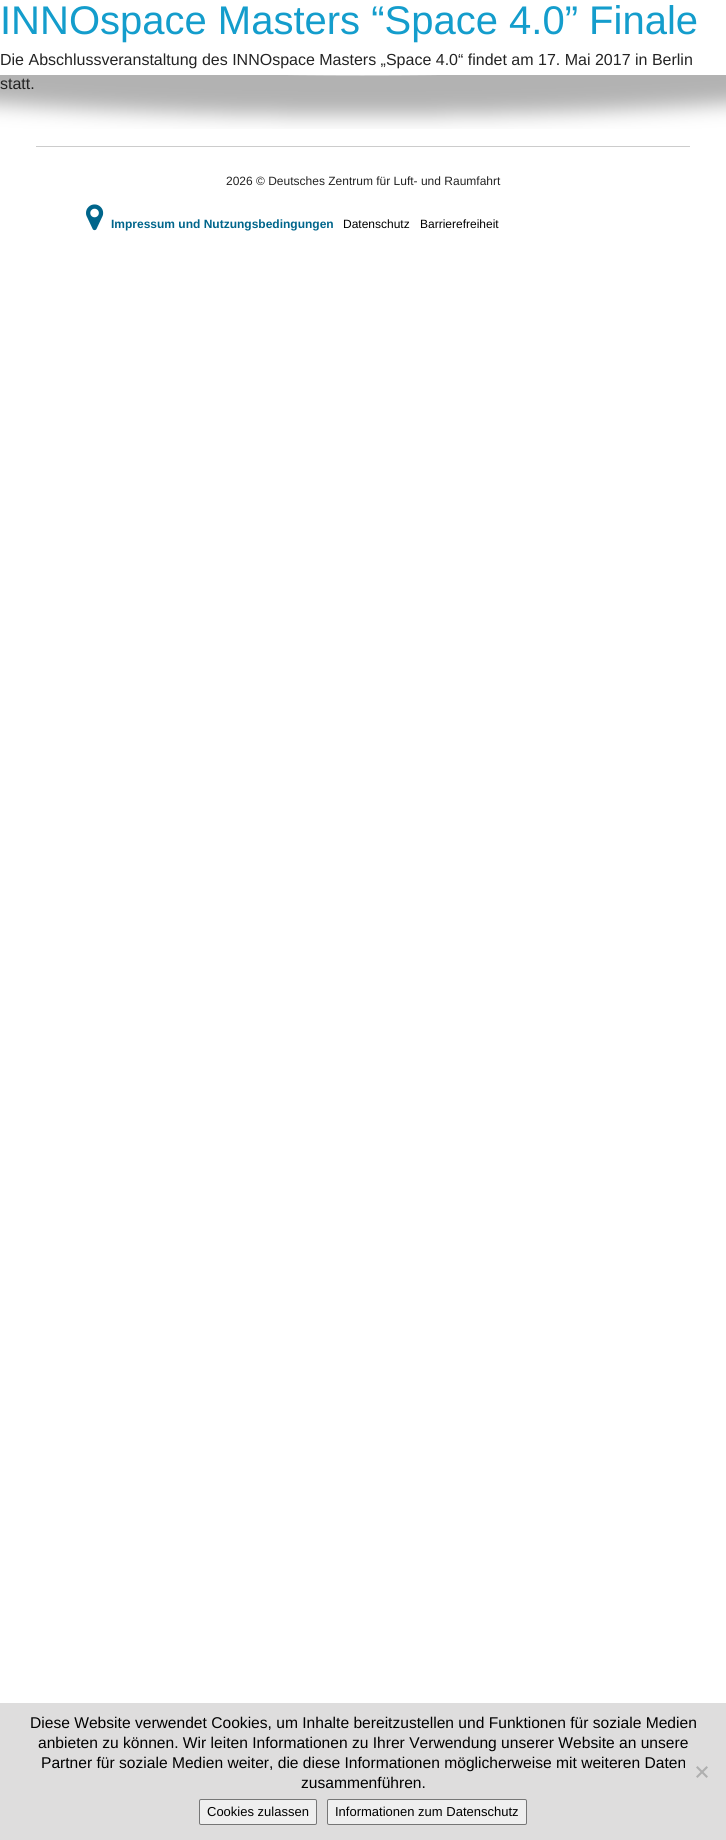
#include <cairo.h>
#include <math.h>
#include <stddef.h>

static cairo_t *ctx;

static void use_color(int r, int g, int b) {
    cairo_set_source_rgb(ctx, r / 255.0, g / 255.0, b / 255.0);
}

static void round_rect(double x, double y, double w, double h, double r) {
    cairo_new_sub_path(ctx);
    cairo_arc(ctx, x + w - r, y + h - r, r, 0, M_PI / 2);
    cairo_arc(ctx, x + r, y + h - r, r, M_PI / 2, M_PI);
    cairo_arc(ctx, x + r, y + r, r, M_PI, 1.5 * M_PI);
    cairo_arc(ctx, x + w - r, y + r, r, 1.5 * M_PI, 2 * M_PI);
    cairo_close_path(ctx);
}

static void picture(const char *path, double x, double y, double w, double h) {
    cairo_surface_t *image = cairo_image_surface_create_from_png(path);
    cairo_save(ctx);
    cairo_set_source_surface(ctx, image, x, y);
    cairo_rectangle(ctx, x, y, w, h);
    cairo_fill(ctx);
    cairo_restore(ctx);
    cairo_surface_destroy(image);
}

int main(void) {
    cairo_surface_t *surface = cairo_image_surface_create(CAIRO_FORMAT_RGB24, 726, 1840);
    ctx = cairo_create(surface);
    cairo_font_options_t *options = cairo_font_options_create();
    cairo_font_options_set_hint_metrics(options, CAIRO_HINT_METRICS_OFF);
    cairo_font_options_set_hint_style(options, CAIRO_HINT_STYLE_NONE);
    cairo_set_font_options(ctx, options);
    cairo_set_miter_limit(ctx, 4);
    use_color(255, 255, 255);
    cairo_paint(ctx);
    picture("img1.png", 0, 75, 726, 54);
    cairo_select_font_face(ctx, "Liberation Sans", CAIRO_FONT_SLANT_NORMAL, CAIRO_FONT_WEIGHT_NORMAL);
    cairo_set_font_size(ctx, 40);
    use_color(20, 157, 204);
    cairo_move_to(ctx, 0, 34);
    cairo_show_text(ctx, "INNOspace Masters “Space 4.0” Finale");
    cairo_set_font_size(ctx, 16);
    use_color(35, 35, 35);
    cairo_move_to(ctx, 0, 65);
    cairo_show_text(ctx, "Die Abschlussveranstaltung des INNOspace Masters „Space 4.0“ findet am 17. Mai 2017 in Berlin");
    cairo_move_to(ctx, 0, 89);
    cairo_show_text(ctx, "statt.");
    use_color(204, 204, 204);
    cairo_rectangle(ctx, 36, 146, 654, 1);
    cairo_fill(ctx);
    cairo_set_font_size(ctx, 12);
    use_color(35, 35, 35);
    cairo_move_to(ctx, 226, 185);
    cairo_show_text(ctx, "2026 © Deutsches Zentrum für Luft- und Raumfahrt");
    picture("img2.png", 86, 204, 18, 27);
    cairo_select_font_face(ctx, "Liberation Sans", CAIRO_FONT_SLANT_NORMAL, CAIRO_FONT_WEIGHT_BOLD);
    use_color(0, 101, 139);
    cairo_move_to(ctx, 111, 228);
    cairo_show_text(ctx, "Impressum und Nutzungsbedingungen");
    cairo_select_font_face(ctx, "Liberation Sans", CAIRO_FONT_SLANT_NORMAL, CAIRO_FONT_WEIGHT_NORMAL);
    use_color(0, 0, 0);
    cairo_move_to(ctx, 343, 228);
    cairo_show_text(ctx, "Datenschutz");
    cairo_move_to(ctx, 420, 228);
    cairo_show_text(ctx, "Barrierefreiheit");
    use_color(222, 221, 221);
    cairo_rectangle(ctx, 0, 1703, 726, 137);
    cairo_fill(ctx);
    cairo_set_font_size(ctx, 15.6);
    use_color(0, 0, 0);
    cairo_move_to(ctx, 30, 1728);
    cairo_show_text(ctx, "Diese Website verwendet Cookies, um Inhalte bereitzustellen und Funktionen für soziale Medien");
    cairo_move_to(ctx, 38, 1748);
    cairo_show_text(ctx, "anbieten zu können. Wir leiten Informationen zu Ihrer Verwendung unserer Website an unsere");
    cairo_move_to(ctx, 41, 1768);
    cairo_show_text(ctx, "Partner für soziale Medien weiter, die diese Informationen möglicherweise mit weiteren Daten");
    cairo_move_to(ctx, 301, 1788);
    cairo_show_text(ctx, "zusammenführen.");
    use_color(175, 175, 175);
    cairo_new_path(ctx);
    cairo_move_to(ctx, 706.5, 1766);
    cairo_line_to(ctx, 708, 1767.5);
    cairo_line_to(ctx, 697.5, 1778);
    cairo_line_to(ctx, 696, 1776.5);
    cairo_close_path(ctx);
    cairo_fill(ctx);
    cairo_new_path(ctx);
    cairo_move_to(ctx, 696, 1767.5);
    cairo_line_to(ctx, 697.5, 1766);
    cairo_line_to(ctx, 708, 1776.5);
    cairo_line_to(ctx, 706.5, 1778);
    cairo_close_path(ctx);
    cairo_fill(ctx);
    use_color(239, 239, 239);
    round_rect(199.5, 1799.5, 117, 25, 1.5);
    cairo_fill_preserve(ctx);
    use_color(118, 118, 118);
    cairo_set_line_width(ctx, 1);
    cairo_stroke(ctx);
    cairo_set_font_size(ctx, 13);
    use_color(0, 0, 0);
    cairo_move_to(ctx, 207, 1816);
    cairo_show_text(ctx, "Cookies zulassen");
    use_color(239, 239, 239);
    round_rect(327.5, 1799.5, 199, 25, 1.5);
    cairo_fill_preserve(ctx);
    use_color(118, 118, 118);
    cairo_stroke(ctx);
    use_color(0, 0, 0);
    cairo_move_to(ctx, 335, 1816);
    cairo_show_text(ctx, "Informationen zum Datenschutz");
    cairo_surface_write_to_png(surface, "result.png");
    cairo_font_options_destroy(options);
    cairo_destroy(ctx);
    cairo_surface_destroy(surface);
    return 0;
}
